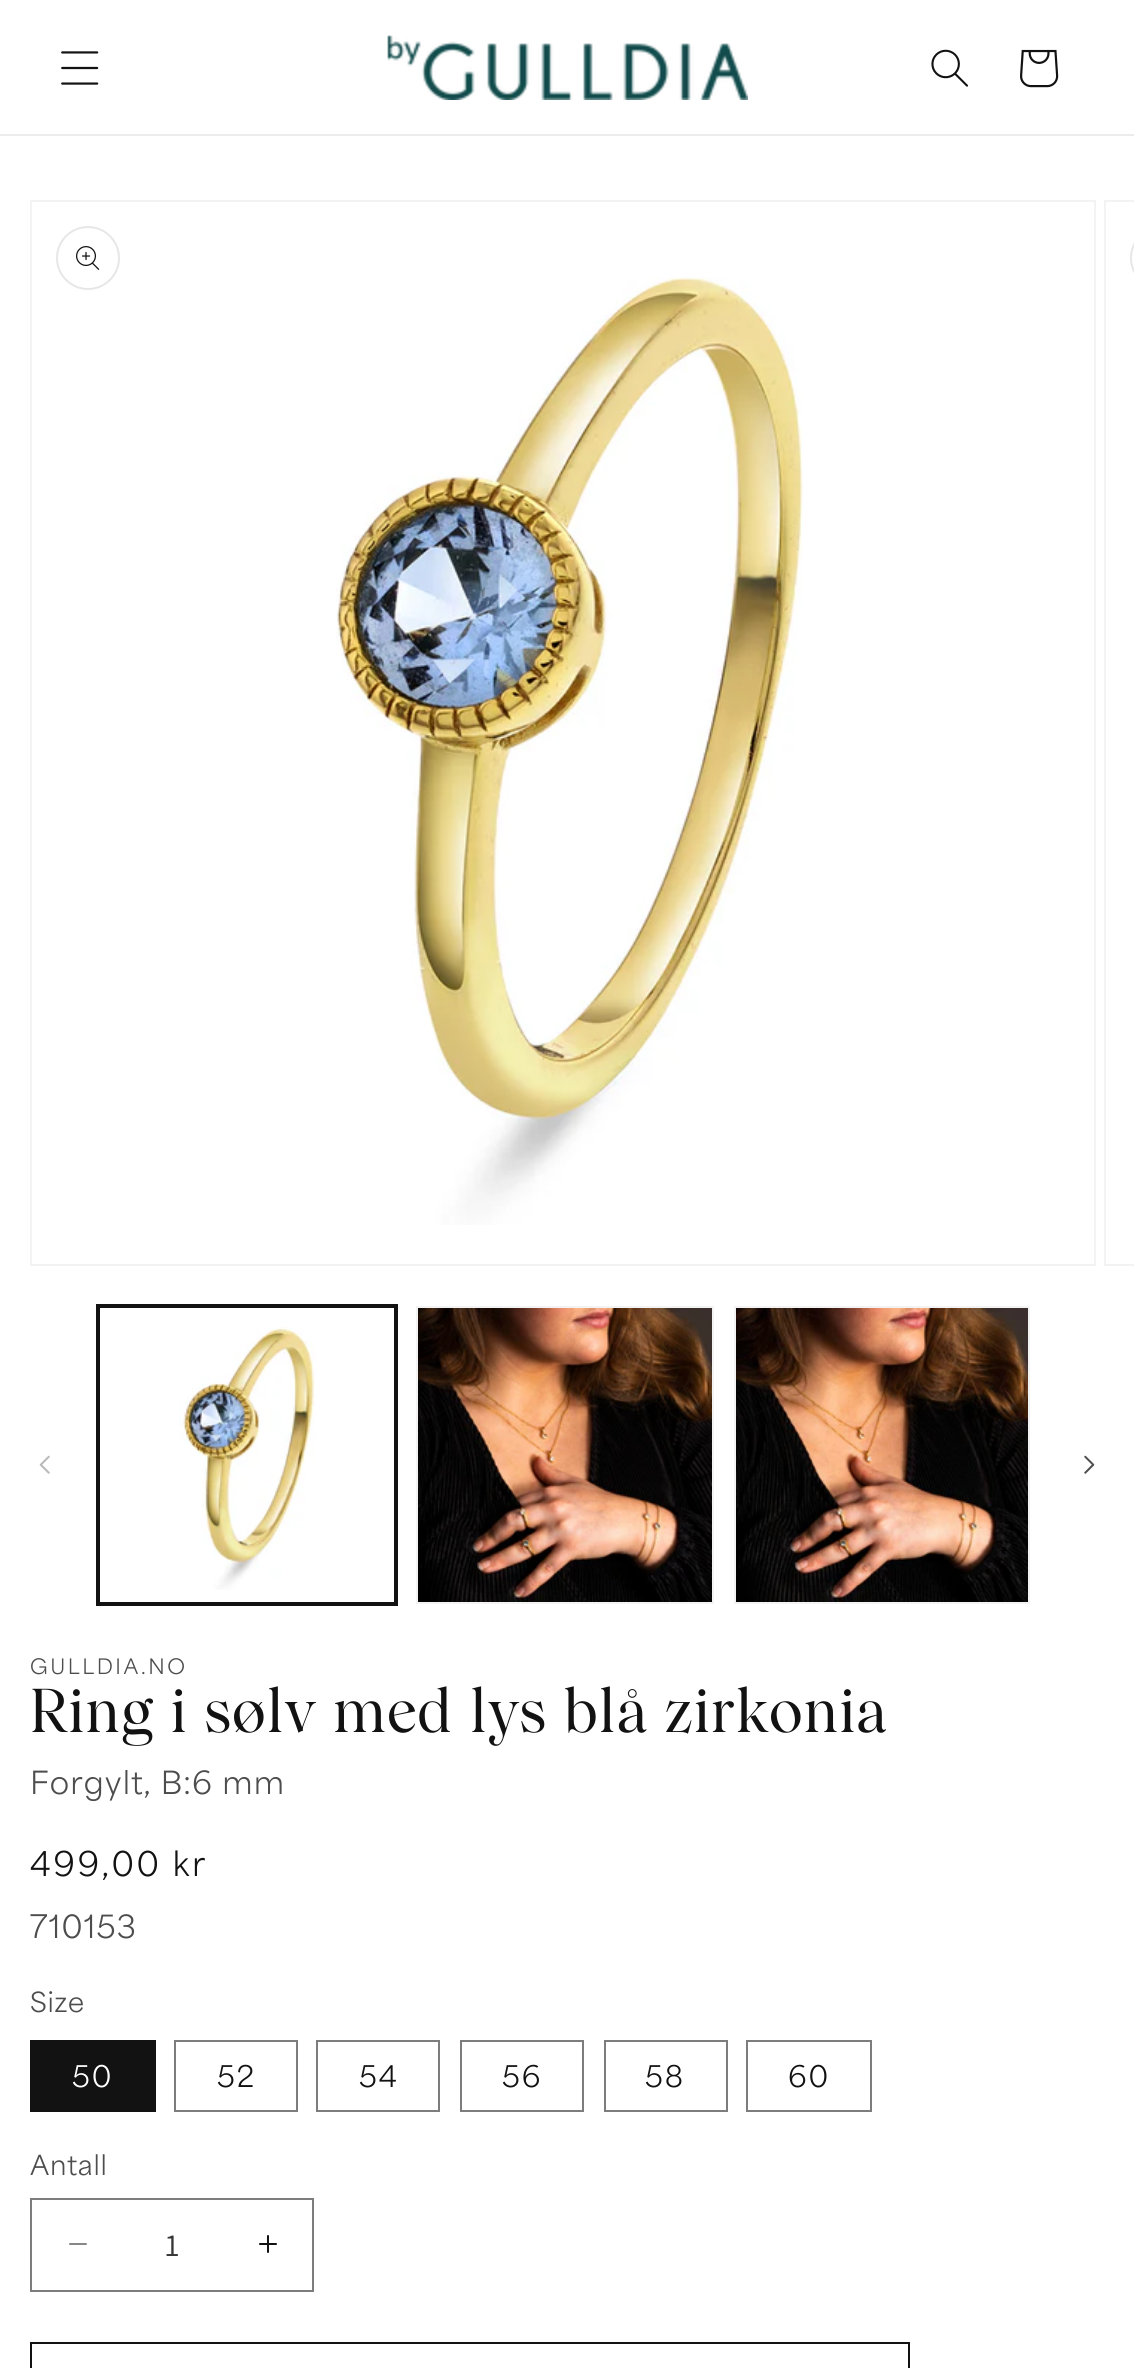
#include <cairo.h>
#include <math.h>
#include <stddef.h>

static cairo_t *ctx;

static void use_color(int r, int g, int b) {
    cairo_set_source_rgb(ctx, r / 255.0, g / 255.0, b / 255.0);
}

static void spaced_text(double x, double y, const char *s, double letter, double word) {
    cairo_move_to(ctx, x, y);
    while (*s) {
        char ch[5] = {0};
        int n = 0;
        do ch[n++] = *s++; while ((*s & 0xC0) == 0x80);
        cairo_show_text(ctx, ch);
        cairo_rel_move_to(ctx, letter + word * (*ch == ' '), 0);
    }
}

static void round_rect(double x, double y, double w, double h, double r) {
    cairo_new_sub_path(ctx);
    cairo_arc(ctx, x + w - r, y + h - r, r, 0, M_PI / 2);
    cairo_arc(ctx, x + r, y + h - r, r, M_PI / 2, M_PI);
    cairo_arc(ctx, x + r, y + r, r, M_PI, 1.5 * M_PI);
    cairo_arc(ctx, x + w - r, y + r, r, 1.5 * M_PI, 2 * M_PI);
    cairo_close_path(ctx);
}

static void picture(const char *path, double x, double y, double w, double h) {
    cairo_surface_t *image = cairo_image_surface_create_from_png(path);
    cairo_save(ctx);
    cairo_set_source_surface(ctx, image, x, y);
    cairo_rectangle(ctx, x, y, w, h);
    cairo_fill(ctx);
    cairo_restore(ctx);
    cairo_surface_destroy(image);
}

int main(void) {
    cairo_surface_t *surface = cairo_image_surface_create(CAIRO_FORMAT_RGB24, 1134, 2368);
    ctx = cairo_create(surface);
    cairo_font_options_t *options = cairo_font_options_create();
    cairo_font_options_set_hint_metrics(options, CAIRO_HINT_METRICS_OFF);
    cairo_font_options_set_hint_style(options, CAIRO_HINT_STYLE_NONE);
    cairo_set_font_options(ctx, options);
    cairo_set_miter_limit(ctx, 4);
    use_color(255, 255, 255);
    cairo_paint(ctx);
    use_color(236, 236, 236);
    cairo_rectangle(ctx, 0, 134, 1134, 2);
    cairo_fill(ctx);
    picture("img1.png", 61, 51, 38, 34);
    picture("img2.png", 387, 35, 361, 65);
    picture("img3.png", 931, 49, 37, 38);
    picture("img4.png", 1020, 49, 39, 39);
    cairo_rectangle(ctx, 31, 201, 1064, 1064);
    use_color(243, 243, 243);
    cairo_stroke(ctx);
    cairo_arc(ctx, 88, 258, 31, 0, 2 * M_PI);
    use_color(231, 231, 231);
    cairo_stroke(ctx);
    picture("img5.png", 76, 246, 24, 24);
    picture("img6.png", 336, 277, 467, 948);
    cairo_rectangle(ctx, 1105, 201, 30, 1064);
    use_color(243, 243, 243);
    cairo_stroke(ctx);
    round_rect(1131, 227, 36, 62, 31);
    use_color(231, 231, 231);
    cairo_stroke(ctx);
    picture("img7.png", 39, 1455, 11, 19);
    cairo_rectangle(ctx, 97, 1305, 300, 300);
    use_color(18, 18, 18);
    cairo_stroke(ctx);
    cairo_rectangle(ctx, 99, 1307, 296, 296);
    cairo_stroke(ctx);
    picture("img8.png", 179, 1326, 137, 264);
    cairo_rectangle(ctx, 417, 1307, 296, 296);
    use_color(243, 243, 243);
    cairo_stroke(ctx);
    picture("img9.png", 418, 1308, 294, 294);
    cairo_rectangle(ctx, 735, 1307, 294, 296);
    cairo_stroke(ctx);
    picture("img10.png", 736, 1308, 292, 294);
    picture("img11.png", 1084, 1455, 11, 19);
    cairo_select_font_face(ctx, "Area", CAIRO_FONT_SLANT_NORMAL, CAIRO_FONT_WEIGHT_NORMAL);
    cairo_set_font_size(ctx, 20);
    use_color(77, 77, 77);
    spaced_text(30, 1674, "GULLDIA.NO", 2.6, 0);
    cairo_select_font_face(ctx, "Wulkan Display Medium", CAIRO_FONT_SLANT_NORMAL, CAIRO_FONT_WEIGHT_NORMAL);
    cairo_set_font_size(ctx, 60);
    use_color(18, 18, 18);
    spaced_text(30, 1732, "Ring i sølv med lys blå zirkonia", 1.2, 0);
    cairo_select_font_face(ctx, "Area", CAIRO_FONT_SLANT_NORMAL, CAIRO_FONT_WEIGHT_NORMAL);
    cairo_set_font_size(ctx, 30);
    use_color(77, 77, 77);
    spaced_text(30, 1794, "Forgylt, B:6 mm", 1.2, 0);
    cairo_set_font_size(ctx, 32);
    use_color(18, 18, 18);
    spaced_text(30, 1876, "499,00 kr", 2.6, 0);
    cairo_set_font_size(ctx, 30);
    use_color(77, 77, 77);
    spaced_text(30, 1938, "710153", 1.2, 0);
    cairo_set_font_size(ctx, 26);
    spaced_text(30, 2012, "Size", 0.75, 0);
    use_color(18, 18, 18);
    cairo_rectangle(ctx, 30, 2040, 126, 72);
    cairo_fill(ctx);
    cairo_set_font_size(ctx, 28);
    use_color(255, 255, 255);
    spaced_text(72, 2087, "50", 2, 0);
    cairo_rectangle(ctx, 175, 2041, 122, 70);
    use_color(125, 125, 125);
    cairo_stroke(ctx);
    use_color(18, 18, 18);
    spaced_text(217, 2087, "52", 2, 0);
    cairo_rectangle(ctx, 317, 2041, 122, 70);
    use_color(125, 125, 125);
    cairo_stroke(ctx);
    use_color(18, 18, 18);
    spaced_text(359, 2087, "54", 2, 0);
    cairo_rectangle(ctx, 461, 2041, 122, 70);
    use_color(125, 125, 125);
    cairo_stroke(ctx);
    use_color(18, 18, 18);
    spaced_text(502, 2087, "56", 2, 0);
    cairo_rectangle(ctx, 605, 2041, 122, 70);
    use_color(125, 125, 125);
    cairo_stroke(ctx);
    use_color(18, 18, 18);
    spaced_text(645, 2087, "58", 2, 0);
    cairo_rectangle(ctx, 747, 2041, 124, 70);
    use_color(125, 125, 125);
    cairo_stroke(ctx);
    use_color(18, 18, 18);
    spaced_text(788, 2087, "60", 2, 0);
    cairo_set_font_size(ctx, 26);
    use_color(77, 77, 77);
    spaced_text(30, 2175, "Antall", 0.75, 0);
    picture("img12.png", 69, 2243, 18, 2);
    picture("img13.png", 259, 2235, 18, 18);
    cairo_rectangle(ctx, 31, 2199, 282, 92);
    use_color(125, 125, 125);
    cairo_stroke(ctx);
    cairo_select_font_face(ctx, "Assistant", CAIRO_FONT_SLANT_NORMAL, CAIRO_FONT_WEIGHT_NORMAL);
    cairo_set_font_size(ctx, 32);
    use_color(54, 54, 54);
    cairo_move_to(ctx, 165, 2256);
    cairo_show_text(ctx, "1");
    cairo_rectangle(ctx, 31, 2343, 878, 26);
    use_color(18, 18, 18);
    cairo_stroke(ctx);
    cairo_surface_write_to_png(surface, "result.png");
    cairo_font_options_destroy(options);
    cairo_destroy(ctx);
    cairo_surface_destroy(surface);
    return 0;
}
